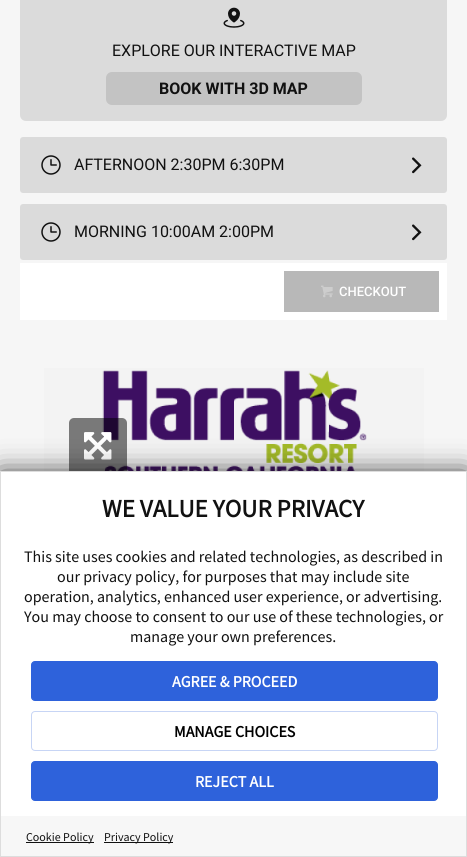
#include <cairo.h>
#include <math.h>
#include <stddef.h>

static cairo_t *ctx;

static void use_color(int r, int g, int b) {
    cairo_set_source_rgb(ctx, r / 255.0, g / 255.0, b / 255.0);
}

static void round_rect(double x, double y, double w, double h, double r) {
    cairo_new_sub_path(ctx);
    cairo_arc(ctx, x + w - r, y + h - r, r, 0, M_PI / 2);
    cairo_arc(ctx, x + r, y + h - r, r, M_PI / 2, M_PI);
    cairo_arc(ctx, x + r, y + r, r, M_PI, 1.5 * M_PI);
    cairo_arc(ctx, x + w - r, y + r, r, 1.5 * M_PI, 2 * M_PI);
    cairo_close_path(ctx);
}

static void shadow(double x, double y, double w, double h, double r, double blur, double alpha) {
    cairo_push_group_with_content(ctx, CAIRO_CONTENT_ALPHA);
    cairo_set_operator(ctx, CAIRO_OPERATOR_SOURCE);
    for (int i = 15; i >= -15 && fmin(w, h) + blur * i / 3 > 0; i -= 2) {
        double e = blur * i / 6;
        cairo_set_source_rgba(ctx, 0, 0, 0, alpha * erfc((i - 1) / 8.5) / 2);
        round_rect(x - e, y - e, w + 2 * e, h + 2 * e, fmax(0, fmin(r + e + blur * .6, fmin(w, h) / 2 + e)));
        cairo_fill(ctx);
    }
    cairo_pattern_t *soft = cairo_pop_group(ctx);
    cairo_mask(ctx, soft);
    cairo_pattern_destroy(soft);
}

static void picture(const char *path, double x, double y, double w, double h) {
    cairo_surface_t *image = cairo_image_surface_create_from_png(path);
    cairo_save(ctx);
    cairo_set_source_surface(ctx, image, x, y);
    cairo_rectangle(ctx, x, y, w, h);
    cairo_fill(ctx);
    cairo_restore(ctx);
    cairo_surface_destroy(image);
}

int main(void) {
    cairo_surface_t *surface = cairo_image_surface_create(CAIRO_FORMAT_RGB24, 467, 857);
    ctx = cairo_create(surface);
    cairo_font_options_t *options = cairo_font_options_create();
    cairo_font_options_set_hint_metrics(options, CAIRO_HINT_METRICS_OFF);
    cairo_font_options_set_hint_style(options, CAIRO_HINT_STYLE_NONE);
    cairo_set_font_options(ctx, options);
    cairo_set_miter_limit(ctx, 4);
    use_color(246, 246, 246);
    cairo_paint(ctx);
    use_color(219, 219, 219);
    round_rect(20, -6, 427, 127, 6);
    cairo_fill(ctx);
    picture("img1.png", 223, 7, 22, 21);
    cairo_select_font_face(ctx, "Roboto", CAIRO_FONT_SLANT_NORMAL, CAIRO_FONT_WEIGHT_NORMAL);
    cairo_set_font_size(ctx, 16);
    use_color(17, 17, 17);
    cairo_move_to(ctx, 112, 56);
    cairo_show_text(ctx, "EXPLORE OUR INTERACTIVE MAP");
    use_color(195, 195, 195);
    round_rect(106, 72, 256, 33, 6);
    cairo_fill(ctx);
    cairo_select_font_face(ctx, "Roboto", CAIRO_FONT_SLANT_NORMAL, CAIRO_FONT_WEIGHT_BOLD);
    use_color(17, 17, 17);
    cairo_move_to(ctx, 159, 94);
    cairo_show_text(ctx, "BOOK WITH 3D MAP");
    use_color(219, 219, 219);
    round_rect(20, 137, 427, 56, 3);
    cairo_fill(ctx);
    picture("img2.png", 41, 155, 20, 20);
    cairo_select_font_face(ctx, "Roboto", CAIRO_FONT_SLANT_NORMAL, CAIRO_FONT_WEIGHT_NORMAL);
    use_color(17, 17, 17);
    cairo_move_to(ctx, 74, 170);
    cairo_show_text(ctx, "AFTERNOON 2:30PM 6:30PM");
    picture("img3.png", 412, 157, 10, 17);
    use_color(219, 219, 219);
    round_rect(20, 204, 427, 56, 3);
    cairo_fill(ctx);
    picture("img2.png", 41, 222, 20, 20);
    use_color(17, 17, 17);
    cairo_move_to(ctx, 74, 237);
    cairo_show_text(ctx, "MORNING 10:00AM 2:00PM");
    picture("img3.png", 412, 224, 10, 17);
    use_color(255, 255, 255);
    cairo_rectangle(ctx, 20, 263, 427, 57);
    cairo_fill(ctx);
    use_color(184, 184, 184);
    cairo_rectangle(ctx, 284, 271, 155, 41);
    cairo_fill(ctx);
    picture("img4.png", 321, 285, 12, 13);
    cairo_select_font_face(ctx, "Roboto Medium", CAIRO_FONT_SLANT_NORMAL, CAIRO_FONT_WEIGHT_NORMAL);
    cairo_set_font_size(ctx, 13);
    use_color(255, 255, 255);
    cairo_move_to(ctx, 339, 296);
    cairo_show_text(ctx, "CHECKOUT");
    use_color(243, 243, 243);
    cairo_rectangle(ctx, 44, 368, 380, 103);
    cairo_fill(ctx);
    picture("img6.png", 102, 370, 265, 101);
    cairo_set_source_rgba(ctx, 0, 0, 0, 0.5);
    round_rect(69, 418, 58, 58, 5);
    cairo_fill(ctx);
    picture("img5.png", 84, 432, 28, 28);
    use_color(17, 17, 17);
    shadow(0, 476, 467, 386, 0, 15, 1);
    use_color(255, 255, 255);
    cairo_rectangle(ctx, 1, 472, 465, 344);
    cairo_fill(ctx);
    cairo_rectangle(ctx, 0.5, 471.5, 466, 385);
    use_color(221, 221, 221);
    cairo_set_line_width(ctx, 1);
    cairo_stroke(ctx);
    cairo_select_font_face(ctx, "Source Sans Pro", CAIRO_FONT_SLANT_NORMAL, CAIRO_FONT_WEIGHT_BOLD);
    cairo_set_font_size(ctx, 25);
    use_color(17, 17, 17);
    cairo_move_to(ctx, 102, 517);
    cairo_show_text(ctx, "WE VALUE YOUR PRIVACY");
    cairo_select_font_face(ctx, "Source Sans Pro", CAIRO_FONT_SLANT_NORMAL, CAIRO_FONT_WEIGHT_NORMAL);
    cairo_set_font_size(ctx, 16);
    cairo_move_to(ctx, 24, 562);
    cairo_show_text(ctx, "This site uses cookies and related technologies, as described in");
    cairo_move_to(ctx, 57, 582);
    cairo_show_text(ctx, "our privacy policy, for purposes that may include site");
    cairo_move_to(ctx, 24, 602);
    cairo_show_text(ctx, "operation, analytics, enhanced user experience, or advertising.");
    cairo_move_to(ctx, 24, 622);
    cairo_show_text(ctx, "You may choose to consent to our use of these technologies, or");
    cairo_move_to(ctx, 130, 642);
    cairo_show_text(ctx, "manage your own preferences.");
    use_color(46, 98, 219);
    round_rect(31.5, 661.5, 406, 39, 3.5);
    cairo_fill_preserve(ctx);
    cairo_stroke(ctx);
    cairo_select_font_face(ctx, "Source Sans Pro", CAIRO_FONT_SLANT_NORMAL, CAIRO_FONT_WEIGHT_BOLD);
    use_color(255, 255, 255);
    cairo_move_to(ctx, 172, 687);
    cairo_show_text(ctx, "AGREE & PROCEED");
    round_rect(31.5, 711.5, 406, 39, 3.5);
    use_color(199, 213, 245);
    cairo_stroke(ctx);
    use_color(0, 0, 0);
    cairo_move_to(ctx, 174, 737);
    cairo_show_text(ctx, "MANAGE CHOICES");
    use_color(46, 98, 219);
    round_rect(31.5, 761.5, 406, 39, 3.5);
    cairo_fill_preserve(ctx);
    cairo_stroke(ctx);
    use_color(255, 255, 255);
    cairo_move_to(ctx, 195, 787);
    cairo_show_text(ctx, "REJECT ALL");
    use_color(247, 247, 247);
    cairo_rectangle(ctx, 1, 816, 465, 40);
    cairo_fill(ctx);
    use_color(17, 17, 17);
    cairo_rectangle(ctx, 26, 842, 68, 1);
    cairo_fill(ctx);
    cairo_select_font_face(ctx, "Source Sans Pro", CAIRO_FONT_SLANT_NORMAL, CAIRO_FONT_WEIGHT_NORMAL);
    cairo_set_font_size(ctx, 12);
    cairo_move_to(ctx, 26, 841);
    cairo_show_text(ctx, "Cookie Policy");
    cairo_rectangle(ctx, 104, 842, 69, 1);
    cairo_fill(ctx);
    cairo_move_to(ctx, 104, 841);
    cairo_show_text(ctx, "Privacy Policy");
    cairo_surface_write_to_png(surface, "result.png");
    cairo_font_options_destroy(options);
    cairo_destroy(ctx);
    cairo_surface_destroy(surface);
    return 0;
}
